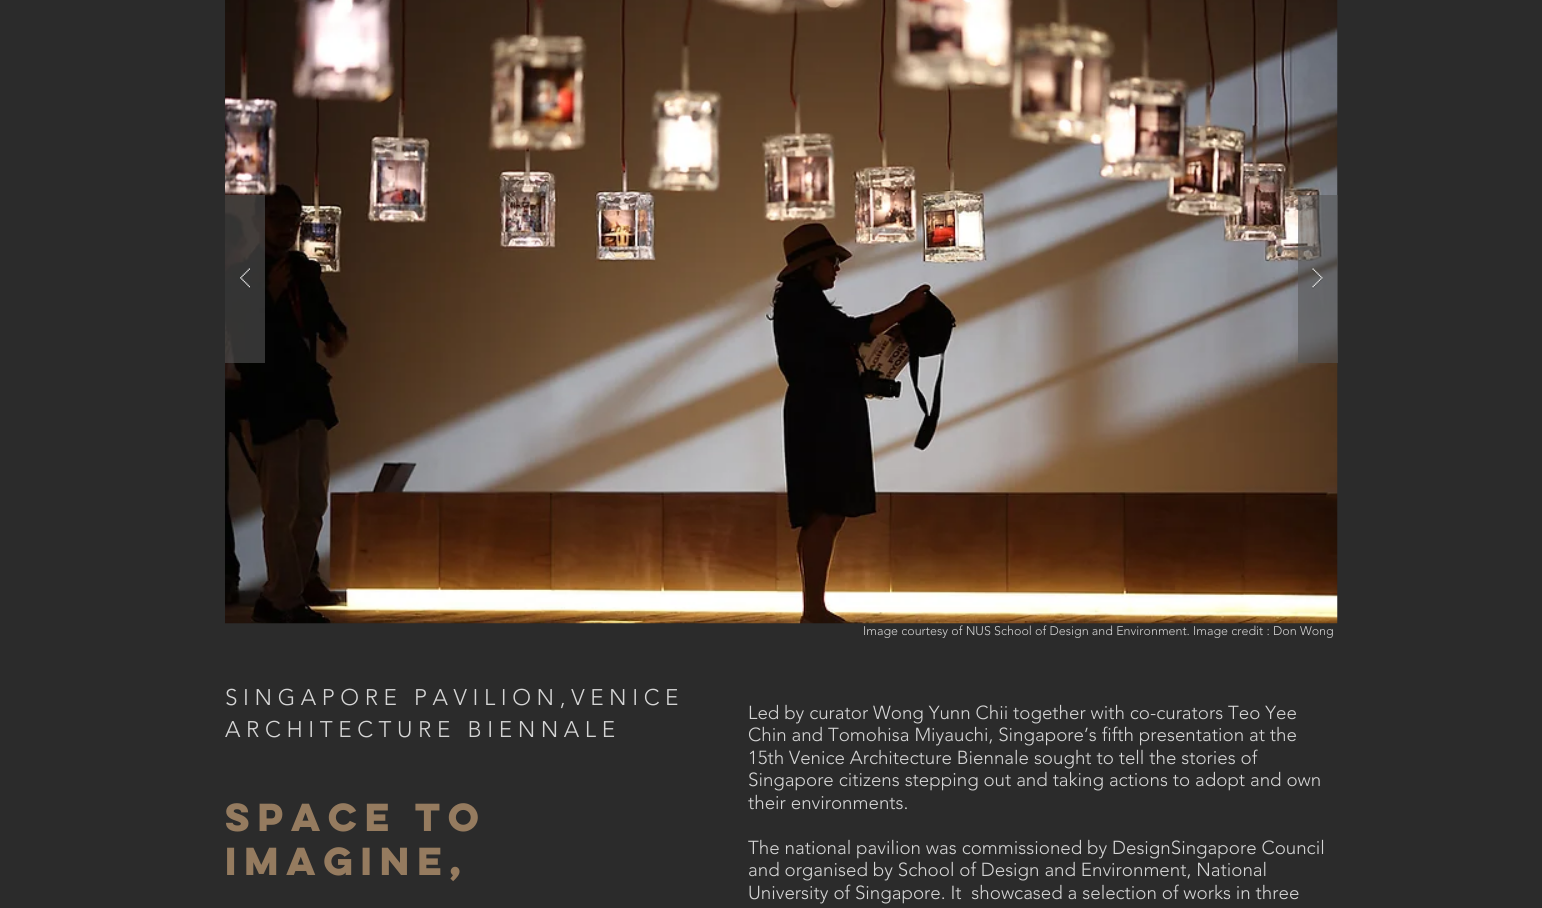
#include <cairo.h>
#include <math.h>
#include <stddef.h>

static cairo_t *ctx;

static void use_color(int r, int g, int b) {
    cairo_set_source_rgb(ctx, r / 255.0, g / 255.0, b / 255.0);
}

static void spaced_text(double x, double y, const char *s, double letter, double word) {
    cairo_move_to(ctx, x, y);
    while (*s) {
        char ch[5] = {0};
        int n = 0;
        do ch[n++] = *s++; while ((*s & 0xC0) == 0x80);
        cairo_show_text(ctx, ch);
        cairo_rel_move_to(ctx, letter + word * (*ch == ' '), 0);
    }
}

static void picture(const char *path, double x, double y, double w, double h) {
    cairo_surface_t *image = cairo_image_surface_create_from_png(path);
    cairo_save(ctx);
    cairo_set_source_surface(ctx, image, x, y);
    cairo_rectangle(ctx, x, y, w, h);
    cairo_fill(ctx);
    cairo_restore(ctx);
    cairo_surface_destroy(image);
}

int main(void) {
    cairo_surface_t *surface = cairo_image_surface_create(CAIRO_FORMAT_RGB24, 1542, 908);
    ctx = cairo_create(surface);
    cairo_font_options_t *options = cairo_font_options_create();
    cairo_font_options_set_hint_metrics(options, CAIRO_HINT_METRICS_OFF);
    cairo_font_options_set_hint_style(options, CAIRO_HINT_STYLE_NONE);
    cairo_set_font_options(ctx, options);
    cairo_set_miter_limit(ctx, 4);
    use_color(43, 43, 43);
    cairo_paint(ctx);
    picture("img1.png", 225, 0, 1113, 624);
    cairo_set_source_rgba(ctx, 0.333, 0.333, 0.333, 0.6);
    cairo_rectangle(ctx, 225, 195, 40, 168);
    cairo_fill(ctx);
    picture("img2.png", 240, 268, 10, 21);
    cairo_rectangle(ctx, 1298, 195, 40, 168);
    cairo_fill(ctx);
    picture("img3.png", 1312, 268, 11, 21);
    cairo_select_font_face(ctx, "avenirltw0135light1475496 Light", CAIRO_FONT_SLANT_NORMAL, CAIRO_FONT_WEIGHT_NORMAL);
    cairo_set_font_size(ctx, 12.5);
    use_color(213, 213, 213);
    cairo_move_to(ctx, 863, 635);
    cairo_show_text(ctx, "Image courtesy of NUS School of Design and Environment. Image credit : Don Wong");
    cairo_set_font_size(ctx, 22.5);
    spaced_text(225, 705, "SINGAPORE PAVILION,VENICE", 5.6, 0);
    spaced_text(225, 737, "ARCHITECTURE BIENNALE", 5.6, 0);
    cairo_set_font_size(ctx, 18.75);
    cairo_move_to(ctx, 748, 719);
    cairo_show_text(ctx, "Led by curator Wong Yunn Chii together with co-curators Teo Yee");
    cairo_move_to(ctx, 748, 741);
    cairo_show_text(ctx, "Chin and Tomohisa Miyauchi, Singapore’s fifth presentation at the");
    cairo_move_to(ctx, 748, 764);
    cairo_show_text(ctx, "15th Venice Architecture Biennale sought to tell the stories of");
    cairo_move_to(ctx, 748, 786);
    cairo_show_text(ctx, "Singapore citizens stepping out and taking actions to adopt and own");
    cairo_move_to(ctx, 748, 809);
    cairo_show_text(ctx, "their environments.");
    cairo_move_to(ctx, 748, 854);
    cairo_show_text(ctx, "The national pavilion was commissioned by DesignSingapore Council");
    cairo_move_to(ctx, 748, 876);
    cairo_show_text(ctx, "and organised by School of Design and Environment, National");
    cairo_move_to(ctx, 748, 899);
    cairo_show_text(ctx, "University of Singapore. It  showcased a selection of works in three");
    cairo_select_font_face(ctx, "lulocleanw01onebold", CAIRO_FONT_SLANT_NORMAL, CAIRO_FONT_WEIGHT_BOLD);
    cairo_set_font_size(ctx, 35);
    use_color(149, 123, 95);
    cairo_move_to(ctx, 225, 831);
    cairo_show_text(ctx, "SPACE TO");
    cairo_move_to(ctx, 225, 875);
    cairo_show_text(ctx, "IMAGINE,");
    cairo_surface_write_to_png(surface, "result.png");
    cairo_font_options_destroy(options);
    cairo_destroy(ctx);
    cairo_surface_destroy(surface);
    return 0;
}
